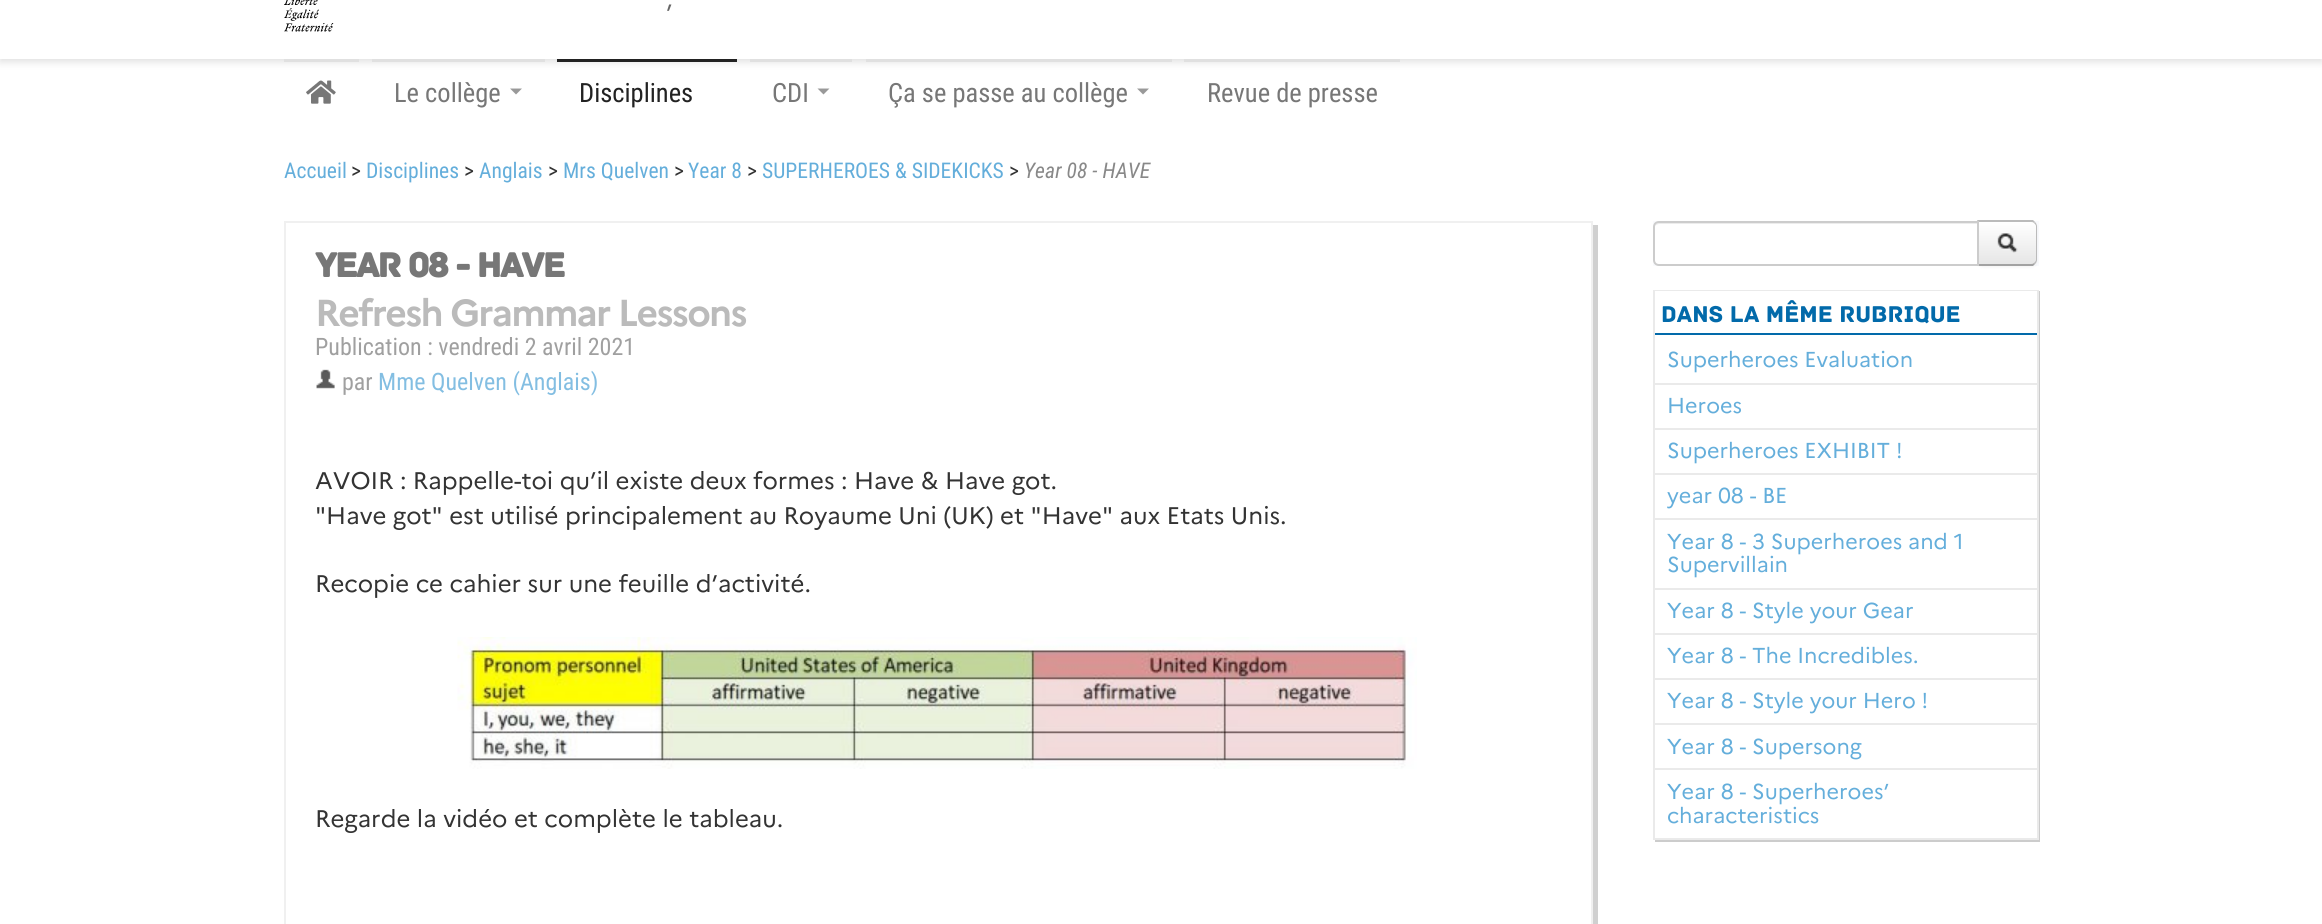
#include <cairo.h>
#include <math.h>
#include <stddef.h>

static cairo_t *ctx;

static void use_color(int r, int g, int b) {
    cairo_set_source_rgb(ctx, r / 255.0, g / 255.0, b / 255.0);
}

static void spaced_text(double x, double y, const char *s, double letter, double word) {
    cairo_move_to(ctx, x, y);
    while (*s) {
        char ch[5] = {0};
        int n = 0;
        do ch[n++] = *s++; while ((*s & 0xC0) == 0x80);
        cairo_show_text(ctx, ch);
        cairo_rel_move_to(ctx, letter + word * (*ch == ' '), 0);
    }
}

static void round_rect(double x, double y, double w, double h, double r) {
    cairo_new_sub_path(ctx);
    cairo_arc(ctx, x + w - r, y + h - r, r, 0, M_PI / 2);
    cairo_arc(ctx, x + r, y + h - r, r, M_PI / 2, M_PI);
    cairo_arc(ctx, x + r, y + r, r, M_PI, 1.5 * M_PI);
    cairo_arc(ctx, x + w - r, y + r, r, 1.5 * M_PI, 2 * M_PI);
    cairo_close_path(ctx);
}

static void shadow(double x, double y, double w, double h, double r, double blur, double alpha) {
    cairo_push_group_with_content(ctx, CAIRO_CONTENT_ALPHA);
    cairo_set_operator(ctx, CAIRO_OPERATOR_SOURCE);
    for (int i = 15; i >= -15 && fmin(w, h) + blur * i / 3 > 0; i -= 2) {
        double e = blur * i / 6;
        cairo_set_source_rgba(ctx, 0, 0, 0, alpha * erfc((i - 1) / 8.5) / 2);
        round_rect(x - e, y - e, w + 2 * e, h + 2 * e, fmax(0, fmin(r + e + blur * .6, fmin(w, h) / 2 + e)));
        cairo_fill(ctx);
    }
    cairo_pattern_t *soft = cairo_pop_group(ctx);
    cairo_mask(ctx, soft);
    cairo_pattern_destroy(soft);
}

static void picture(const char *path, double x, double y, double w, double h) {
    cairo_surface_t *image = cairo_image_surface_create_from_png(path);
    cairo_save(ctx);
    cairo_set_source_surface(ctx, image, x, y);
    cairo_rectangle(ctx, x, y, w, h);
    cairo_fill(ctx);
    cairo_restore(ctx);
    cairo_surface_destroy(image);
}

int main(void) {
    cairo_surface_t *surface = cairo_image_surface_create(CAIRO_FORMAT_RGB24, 2322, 924);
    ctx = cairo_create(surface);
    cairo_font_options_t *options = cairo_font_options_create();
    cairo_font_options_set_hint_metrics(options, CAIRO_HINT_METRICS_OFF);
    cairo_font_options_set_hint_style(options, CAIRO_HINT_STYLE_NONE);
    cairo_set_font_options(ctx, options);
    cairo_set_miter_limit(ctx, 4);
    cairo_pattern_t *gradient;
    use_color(255, 255, 255);
    cairo_paint(ctx);
    use_color(224, 224, 224);
    shadow(0, -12, 2322, 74, 0, 4, 1);
    use_color(255, 255, 255);
    cairo_rectangle(ctx, 0, 0, 2322, 59);
    cairo_fill(ctx);
    picture("img1.png", 284, 0, 50, 32);
    cairo_select_font_face(ctx, "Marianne", CAIRO_FONT_SLANT_NORMAL, CAIRO_FONT_WEIGHT_NORMAL);
    cairo_set_font_size(ctx, 24);
    use_color(102, 102, 102);
    cairo_move_to(ctx, 666, 7);
    cairo_show_text(ctx, ",");
    use_color(224, 224, 224);
    cairo_rectangle(ctx, 284, 59, 75, 3);
    cairo_fill(ctx);
    picture("img2.png", 306, 80, 30, 24);
    cairo_rectangle(ctx, 372, 59, 173, 3);
    cairo_fill(ctx);
    cairo_select_font_face(ctx, "Roboto Condensed", CAIRO_FONT_SLANT_NORMAL, CAIRO_FONT_WEIGHT_NORMAL);
    cairo_set_font_size(ctx, 26.5);
    use_color(119, 119, 119);
    cairo_move_to(ctx, 394, 102);
    cairo_show_text(ctx, "Le collège");
    use_color(153, 153, 153);
    cairo_new_path(ctx);
    cairo_move_to(ctx, 510, 88.5);
    cairo_line_to(ctx, 522, 88.5);
    cairo_line_to(ctx, 516, 94.5);
    cairo_close_path(ctx);
    cairo_fill(ctx);
    use_color(34, 34, 34);
    cairo_rectangle(ctx, 557, 59, 180, 3);
    cairo_fill(ctx);
    cairo_move_to(ctx, 579, 102);
    cairo_show_text(ctx, "Disciplines");
    use_color(224, 224, 224);
    cairo_rectangle(ctx, 750, 59, 102, 3);
    cairo_fill(ctx);
    use_color(119, 119, 119);
    cairo_move_to(ctx, 772, 102);
    cairo_show_text(ctx, "CDI");
    use_color(153, 153, 153);
    cairo_new_path(ctx);
    cairo_move_to(ctx, 817.5, 88.5);
    cairo_line_to(ctx, 829.5, 88.5);
    cairo_line_to(ctx, 823.5, 94.5);
    cairo_close_path(ctx);
    cairo_fill(ctx);
    use_color(224, 224, 224);
    cairo_rectangle(ctx, 866, 59, 306, 3);
    cairo_fill(ctx);
    use_color(119, 119, 119);
    cairo_move_to(ctx, 888, 102);
    cairo_show_text(ctx, "Ça se passe au collège");
    use_color(153, 153, 153);
    cairo_new_path(ctx);
    cairo_move_to(ctx, 1137, 88.5);
    cairo_line_to(ctx, 1149, 88.5);
    cairo_line_to(ctx, 1143, 94.5);
    cairo_close_path(ctx);
    cairo_fill(ctx);
    use_color(224, 224, 224);
    cairo_rectangle(ctx, 1184, 59, 216, 3);
    cairo_fill(ctx);
    use_color(119, 119, 119);
    cairo_move_to(ctx, 1207, 102);
    cairo_show_text(ctx, "Revue de presse");
    cairo_set_font_size(ctx, 21.6);
    use_color(100, 174, 219);
    cairo_move_to(ctx, 284, 178);
    cairo_show_text(ctx, "Accueil");
    use_color(51, 51, 51);
    cairo_move_to(ctx, 351, 178);
    cairo_show_text(ctx, ">");
    use_color(100, 174, 219);
    cairo_move_to(ctx, 366, 178);
    cairo_show_text(ctx, "Disciplines");
    use_color(51, 51, 51);
    cairo_move_to(ctx, 464, 178);
    cairo_show_text(ctx, ">");
    use_color(100, 174, 219);
    cairo_move_to(ctx, 479, 178);
    cairo_show_text(ctx, "Anglais");
    use_color(51, 51, 51);
    cairo_move_to(ctx, 548, 178);
    cairo_show_text(ctx, ">");
    use_color(100, 174, 219);
    cairo_move_to(ctx, 563, 178);
    cairo_show_text(ctx, "Mrs Quelven");
    use_color(51, 51, 51);
    cairo_move_to(ctx, 674, 178);
    cairo_show_text(ctx, ">");
    use_color(100, 174, 219);
    cairo_move_to(ctx, 688, 178);
    cairo_show_text(ctx, "Year 8");
    use_color(51, 51, 51);
    cairo_move_to(ctx, 747, 178);
    cairo_show_text(ctx, ">");
    use_color(100, 174, 219);
    cairo_move_to(ctx, 762, 178);
    cairo_show_text(ctx, "SUPERHEROES & SIDEKICKS");
    use_color(51, 51, 51);
    cairo_move_to(ctx, 1009, 178);
    cairo_show_text(ctx, ">");
    cairo_select_font_face(ctx, "Roboto Condensed", CAIRO_FONT_SLANT_ITALIC, CAIRO_FONT_WEIGHT_NORMAL);
    use_color(136, 136, 136);
    cairo_move_to(ctx, 1024, 178);
    cairo_show_text(ctx, "Year 08 - HAVE");
    use_color(208, 208, 208);
    cairo_new_path(ctx);
    cairo_move_to(ctx, 288, 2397);
    cairo_line_to(ctx, 288, 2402);
    cairo_line_to(ctx, 1598, 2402);
    cairo_line_to(ctx, 1598, 225);
    cairo_line_to(ctx, 1593, 225);
    cairo_line_to(ctx, 1593, 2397);
    cairo_close_path(ctx);
    cairo_fill(ctx);
    cairo_rectangle(ctx, 285, 222, 1307, 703);
    use_color(240, 240, 240);
    cairo_stroke(ctx);
    cairo_select_font_face(ctx, "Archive", CAIRO_FONT_SLANT_NORMAL, CAIRO_FONT_WEIGHT_BOLD);
    cairo_set_font_size(ctx, 36);
    use_color(119, 119, 119);
    spaced_text(315, 277, "Year 08 - HAVE", -1.75, 0);
    cairo_select_font_face(ctx, "Marianne", CAIRO_FONT_SLANT_NORMAL, CAIRO_FONT_WEIGHT_BOLD);
    cairo_set_font_size(ctx, 37.5);
    use_color(187, 187, 187);
    spaced_text(315, 326, "Refresh Grammar Lessons", -1.75, 0);
    cairo_select_font_face(ctx, "Roboto Condensed", CAIRO_FONT_SLANT_NORMAL, CAIRO_FONT_WEIGHT_NORMAL);
    cairo_set_font_size(ctx, 24);
    use_color(160, 160, 160);
    cairo_move_to(ctx, 315, 355);
    cairo_show_text(ctx, "Publication : vendredi 2 avril 2021");
    picture("img3.png", 316, 369, 19, 20);
    cairo_move_to(ctx, 342, 390);
    cairo_show_text(ctx, "par");
    use_color(131, 190, 226);
    cairo_move_to(ctx, 378, 390);
    cairo_show_text(ctx, "Mme Quelven (Anglais)");
    cairo_select_font_face(ctx, "Marianne", CAIRO_FONT_SLANT_NORMAL, CAIRO_FONT_WEIGHT_NORMAL);
    use_color(51, 51, 51);
    cairo_move_to(ctx, 315, 489);
    cairo_show_text(ctx, "AVOIR : Rappelle-toi qu’il existe deux formes : Have & Have got.");
    cairo_move_to(ctx, 315, 524);
    cairo_show_text(ctx, "\"Have got\" est utilisé principalement au Royaume Uni (UK) et \"Have\" aux Etats Unis.");
    cairo_move_to(ctx, 315, 592);
    cairo_show_text(ctx, "Recopie ce cahier sur une feuille d’activité.");
    picture("img4.png", 457, 637, 960, 132);
    cairo_move_to(ctx, 315, 827);
    cairo_show_text(ctx, "Regarde la vidéo et complète le tableau.");
    use_color(249, 250, 253);
    cairo_rectangle(ctx, 1653, 221, 386, 45);
    cairo_fill(ctx);
    use_color(0, 0, 0);
    shadow(1977, 222, 60, 45, 6, 1.5, 0.05);
    use_color(245, 245, 245);
    cairo_new_path(ctx);
    cairo_move_to(ctx, 1977, 221);
    cairo_line_to(ctx, 2031, 221);
    cairo_curve_to(ctx, 2034.5, 221, 2037, 223.5, 2037, 227);
    cairo_line_to(ctx, 2037, 260);
    cairo_curve_to(ctx, 2037, 263.5, 2034.5, 266, 2031, 266);
    cairo_line_to(ctx, 1977, 266);
    cairo_close_path(ctx);
    cairo_fill(ctx);
    cairo_save(ctx);
    cairo_new_path(ctx);
    cairo_move_to(ctx, 1977, 221);
    cairo_line_to(ctx, 2031, 221);
    cairo_curve_to(ctx, 2034.5, 221, 2037, 223.5, 2037, 227);
    cairo_line_to(ctx, 2037, 260);
    cairo_curve_to(ctx, 2037, 263.5, 2034.5, 266, 2031, 266);
    cairo_line_to(ctx, 1977, 266);
    cairo_close_path(ctx);
    cairo_clip(ctx);
    gradient = cairo_pattern_create_linear(2007, 222, 2007, 264);
    cairo_pattern_add_color_stop_rgba(gradient, 0, 1, 1, 1, 1);
    cairo_pattern_add_color_stop_rgba(gradient, 1, 0.902, 0.902, 0.902, 1);
    cairo_set_source(ctx, gradient);
    cairo_pattern_destroy(gradient);
    cairo_rectangle(ctx, 1979, 222, 58, 42);
    cairo_fill(ctx);
    cairo_restore(ctx);
    use_color(187, 187, 187);
    cairo_new_path(ctx);
    cairo_move_to(ctx, 1977, 220);
    cairo_line_to(ctx, 2033, 220);
    cairo_line_to(ctx, 2035, 222);
    cairo_line_to(ctx, 2034, 223);
    cairo_curve_to(ctx, 2033, 222, 2032, 222, 2031, 222);
    cairo_line_to(ctx, 1978, 222);
    cairo_close_path(ctx);
    cairo_fill(ctx);
    cairo_new_path(ctx);
    cairo_move_to(ctx, 2037, 260);
    cairo_line_to(ctx, 2037, 226);
    cairo_curve_to(ctx, 2037, 225, 2036, 223, 2035, 222);
    cairo_line_to(ctx, 2034, 223);
    cairo_curve_to(ctx, 2035, 224, 2036, 225, 2036, 226);
    cairo_line_to(ctx, 2036, 260);
    cairo_curve_to(ctx, 2036, 261, 2035, 262, 2034, 263);
    cairo_line_to(ctx, 2035, 264);
    cairo_curve_to(ctx, 2036, 263, 2037, 261, 2037, 260);
    cairo_close_path(ctx);
    cairo_fill(ctx);
    use_color(162, 162, 162);
    cairo_new_path(ctx);
    cairo_move_to(ctx, 2033, 266);
    cairo_line_to(ctx, 1977, 266);
    cairo_line_to(ctx, 1978, 264);
    cairo_line_to(ctx, 2031, 264);
    cairo_curve_to(ctx, 2032, 264, 2033, 264, 2034, 263);
    cairo_line_to(ctx, 2035, 264);
    cairo_close_path(ctx);
    cairo_fill(ctx);
    use_color(255, 255, 255);
    cairo_new_path(ctx);
    cairo_move_to(ctx, 1659, 221);
    cairo_line_to(ctx, 1979, 221);
    cairo_line_to(ctx, 1979, 266);
    cairo_line_to(ctx, 1659, 266);
    cairo_curve_to(ctx, 1655.5, 266, 1653, 263.5, 1653, 260);
    cairo_line_to(ctx, 1653, 227);
    cairo_curve_to(ctx, 1653, 223.5, 1655.5, 221, 1659, 221);
    cairo_close_path(ctx);
    cairo_fill(ctx);
    use_color(236, 236, 236);
    cairo_new_path(ctx);
    cairo_move_to(ctx, 1659, 224);
    cairo_line_to(ctx, 1977, 224);
    cairo_line_to(ctx, 1977, 222);
    cairo_line_to(ctx, 1660, 222);
    cairo_curve_to(ctx, 1658, 222, 1656, 224, 1655, 226);
    cairo_curve_to(ctx, 1656, 225, 1658, 224, 1659, 224);
    cairo_close_path(ctx);
    cairo_fill(ctx);
    cairo_new_path(ctx);
    cairo_move_to(ctx, 1659, 222);
    cairo_line_to(ctx, 1978, 222);
    cairo_line_to(ctx, 1978, 265);
    cairo_line_to(ctx, 1659, 265);
    cairo_curve_to(ctx, 1656, 265, 1654, 263, 1654, 260);
    cairo_line_to(ctx, 1654, 227);
    cairo_curve_to(ctx, 1654, 224, 1656, 222, 1659, 222);
    cairo_close_path(ctx);
    use_color(204, 204, 204);
    cairo_stroke(ctx);
    picture("img5.png", 1997, 233, 21, 20);
    cairo_new_path(ctx);
    cairo_move_to(ctx, 1655, 840);
    cairo_line_to(ctx, 1655, 842);
    cairo_line_to(ctx, 2040, 842);
    cairo_line_to(ctx, 2040, 291);
    cairo_line_to(ctx, 2038, 291);
    cairo_line_to(ctx, 2038, 840);
    cairo_close_path(ctx);
    cairo_fill(ctx);
    cairo_rectangle(ctx, 1654, 291, 384, 548);
    use_color(234, 234, 234);
    cairo_stroke(ctx);
    use_color(255, 255, 255);
    cairo_rectangle(ctx, 1655, 291, 382, 1);
    cairo_fill(ctx);
    use_color(2, 106, 170);
    cairo_rectangle(ctx, 1655, 333, 382, 2);
    cairo_fill(ctx);
    cairo_select_font_face(ctx, "Archive", CAIRO_FONT_SLANT_NORMAL, CAIRO_FONT_WEIGHT_NORMAL);
    cairo_move_to(ctx, 1661, 322);
    cairo_show_text(ctx, "Dans la même rubrique");
    cairo_select_font_face(ctx, "Marianne", CAIRO_FONT_SLANT_NORMAL, CAIRO_FONT_WEIGHT_NORMAL);
    cairo_set_font_size(ctx, 21.6);
    use_color(100, 174, 219);
    cairo_move_to(ctx, 1667, 367);
    cairo_show_text(ctx, "Superheroes Evaluation");
    use_color(234, 234, 234);
    cairo_rectangle(ctx, 1655, 383, 382, 2);
    cairo_fill(ctx);
    use_color(100, 174, 219);
    cairo_move_to(ctx, 1667, 413);
    cairo_show_text(ctx, "Heroes");
    use_color(234, 234, 234);
    cairo_rectangle(ctx, 1655, 428, 382, 2);
    cairo_fill(ctx);
    use_color(100, 174, 219);
    cairo_move_to(ctx, 1667, 458);
    cairo_show_text(ctx, "Superheroes EXHIBIT !");
    use_color(234, 234, 234);
    cairo_rectangle(ctx, 1655, 473, 382, 2);
    cairo_fill(ctx);
    use_color(100, 174, 219);
    cairo_move_to(ctx, 1667, 503);
    cairo_show_text(ctx, "year 08 - BE");
    use_color(234, 234, 234);
    cairo_rectangle(ctx, 1655, 518, 382, 2);
    cairo_fill(ctx);
    use_color(100, 174, 219);
    cairo_move_to(ctx, 1667, 549);
    cairo_show_text(ctx, "Year 8 - 3 Superheroes and 1");
    cairo_move_to(ctx, 1667, 572);
    cairo_show_text(ctx, "Supervillain");
    use_color(234, 234, 234);
    cairo_rectangle(ctx, 1655, 588, 382, 2);
    cairo_fill(ctx);
    use_color(100, 174, 219);
    cairo_move_to(ctx, 1667, 618);
    cairo_show_text(ctx, "Year 8 - Style your Gear");
    use_color(234, 234, 234);
    cairo_rectangle(ctx, 1655, 633, 382, 2);
    cairo_fill(ctx);
    use_color(100, 174, 219);
    cairo_move_to(ctx, 1667, 663);
    cairo_show_text(ctx, "Year 8 - The Incredibles.");
    use_color(234, 234, 234);
    cairo_rectangle(ctx, 1655, 678, 382, 2);
    cairo_fill(ctx);
    use_color(100, 174, 219);
    cairo_move_to(ctx, 1667, 708);
    cairo_show_text(ctx, "Year 8 - Style your Hero !");
    use_color(234, 234, 234);
    cairo_rectangle(ctx, 1655, 723, 382, 2);
    cairo_fill(ctx);
    use_color(100, 174, 219);
    cairo_move_to(ctx, 1667, 754);
    cairo_show_text(ctx, "Year 8 - Supersong");
    use_color(234, 234, 234);
    cairo_rectangle(ctx, 1655, 768, 382, 2);
    cairo_fill(ctx);
    use_color(100, 174, 219);
    cairo_move_to(ctx, 1667, 799);
    cairo_show_text(ctx, "Year 8 - Superheroes’");
    cairo_move_to(ctx, 1667, 823);
    cairo_show_text(ctx, "characteristics");
    cairo_surface_write_to_png(surface, "result.png");
    cairo_font_options_destroy(options);
    cairo_destroy(ctx);
    cairo_surface_destroy(surface);
    return 0;
}
